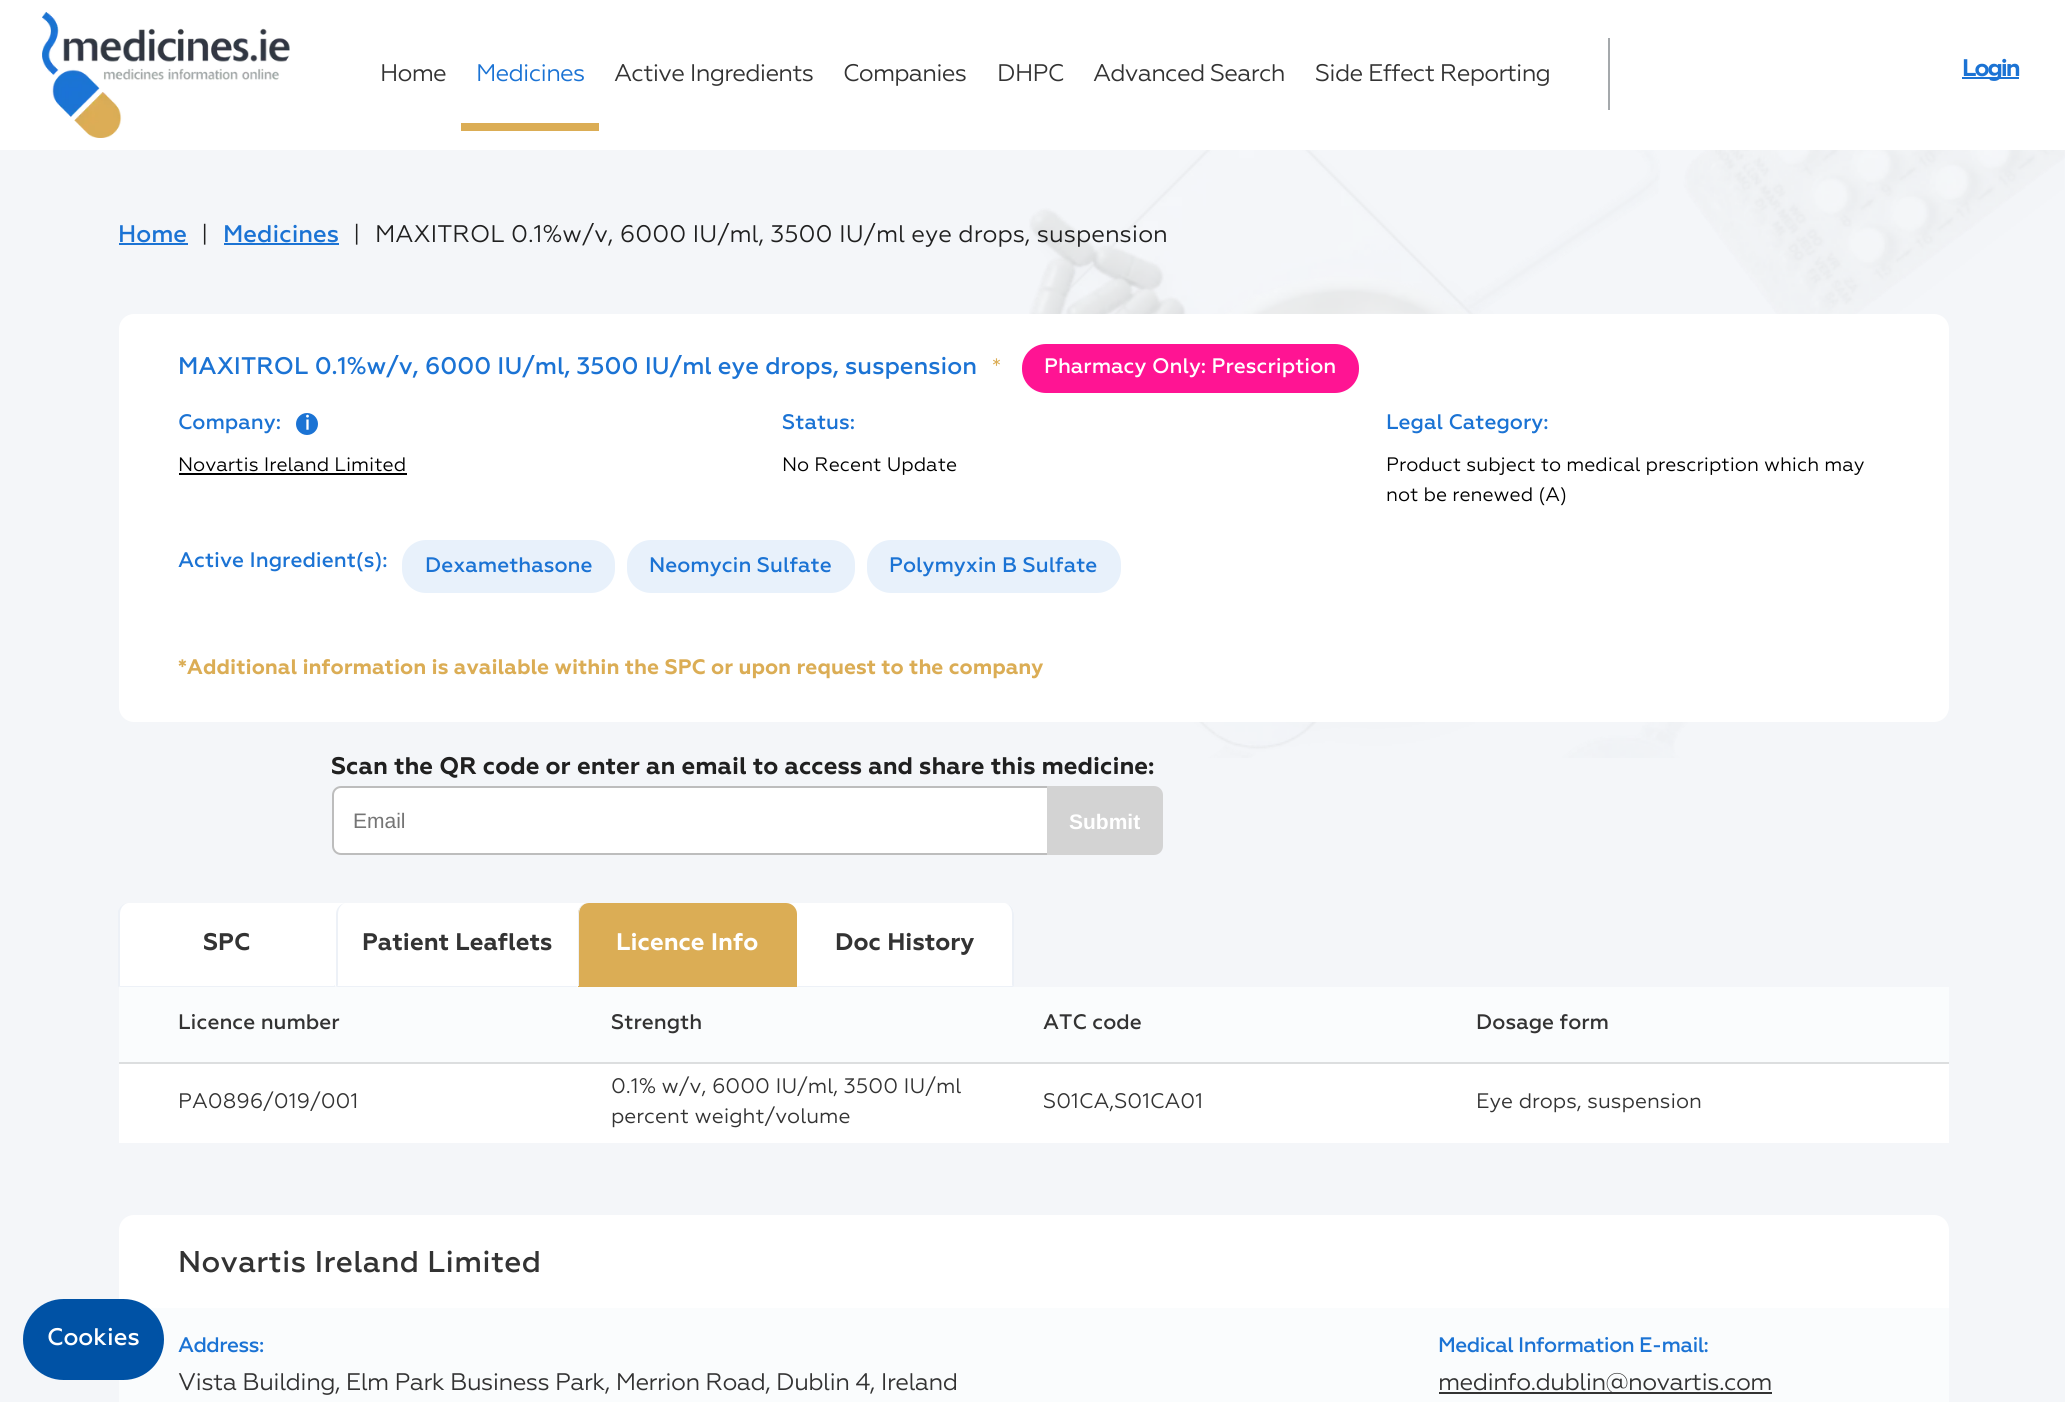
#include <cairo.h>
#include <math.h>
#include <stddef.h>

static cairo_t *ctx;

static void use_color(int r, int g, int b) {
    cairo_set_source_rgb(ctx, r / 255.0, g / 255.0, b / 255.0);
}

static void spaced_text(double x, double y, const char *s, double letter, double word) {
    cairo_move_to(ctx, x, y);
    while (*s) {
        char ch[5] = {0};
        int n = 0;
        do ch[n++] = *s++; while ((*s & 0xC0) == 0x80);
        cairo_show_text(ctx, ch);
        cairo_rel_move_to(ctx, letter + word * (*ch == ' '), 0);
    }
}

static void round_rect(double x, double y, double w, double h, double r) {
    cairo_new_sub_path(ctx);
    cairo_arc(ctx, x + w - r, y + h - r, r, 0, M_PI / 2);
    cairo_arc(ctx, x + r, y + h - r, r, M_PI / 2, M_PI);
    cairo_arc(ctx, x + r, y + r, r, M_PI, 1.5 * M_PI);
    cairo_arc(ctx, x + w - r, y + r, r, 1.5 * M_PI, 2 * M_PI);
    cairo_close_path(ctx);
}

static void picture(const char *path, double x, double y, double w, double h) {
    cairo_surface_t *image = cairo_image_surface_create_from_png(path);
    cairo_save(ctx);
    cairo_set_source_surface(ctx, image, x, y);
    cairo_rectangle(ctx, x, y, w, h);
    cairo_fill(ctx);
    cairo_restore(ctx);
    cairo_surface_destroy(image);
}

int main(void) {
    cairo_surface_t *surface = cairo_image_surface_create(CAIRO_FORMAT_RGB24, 2065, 1402);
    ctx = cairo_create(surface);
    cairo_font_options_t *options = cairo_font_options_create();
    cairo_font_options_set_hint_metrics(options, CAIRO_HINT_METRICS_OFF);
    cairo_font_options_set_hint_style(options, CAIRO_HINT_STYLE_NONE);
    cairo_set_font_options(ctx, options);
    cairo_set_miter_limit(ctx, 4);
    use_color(244, 246, 249);
    cairo_paint(ctx);
    use_color(255, 255, 255);
    round_rect(119, 1215, 1830, 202, 15);
    cairo_fill(ctx);
    use_color(250, 252, 253);
    cairo_rectangle(ctx, 119, 1308, 1830, 94);
    cairo_fill(ctx);
    use_color(0, 82, 165);
    round_rect(23, 1299, 141, 81, 40.5);
    cairo_fill(ctx);
    cairo_select_font_face(ctx, "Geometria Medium", CAIRO_FONT_SLANT_NORMAL, CAIRO_FONT_WEIGHT_NORMAL);
    cairo_set_font_size(ctx, 24);
    use_color(255, 255, 255);
    cairo_move_to(ctx, 47, 1345);
    cairo_show_text(ctx, "Cookies");
    picture("img1.png", 1029, 150, 1036, 608);
    cairo_rectangle(ctx, 0, 0, 2065, 150);
    cairo_fill(ctx);
    picture("img2.png", 42, 12, 248, 126);
    cairo_select_font_face(ctx, "Geometria", CAIRO_FONT_SLANT_NORMAL, CAIRO_FONT_WEIGHT_NORMAL);
    use_color(51, 51, 51);
    spaced_text(380, 81, "Home", -0.75, 0);
    use_color(27, 115, 212);
    spaced_text(476, 81, "Medicines", -0.75, 0);
    use_color(219, 173, 85);
    cairo_rectangle(ctx, 461, 123, 138, 8);
    cairo_fill(ctx);
    use_color(51, 51, 51);
    spaced_text(614, 81, "Active Ingredients", -0.75, 0);
    spaced_text(843, 81, "Companies", -0.75, 0);
    spaced_text(997, 81, "DHPC", -0.75, 0);
    spaced_text(1093, 81, "Advanced Search", -0.75, 0);
    spaced_text(1315, 81, "Side Effect Reporting", -0.75, 0);
    use_color(165, 169, 172);
    cairo_rectangle(ctx, 1608, 38, 2, 72);
    cairo_fill(ctx);
    use_color(27, 115, 212);
    cairo_rectangle(ctx, 1962, 77, 57, 2);
    cairo_fill(ctx);
    cairo_select_font_face(ctx, "Geometria", CAIRO_FONT_SLANT_NORMAL, CAIRO_FONT_WEIGHT_BOLD);
    spaced_text(1962, 76, "Login", -2, 0);
    cairo_select_font_face(ctx, "Geometria Medium", CAIRO_FONT_SLANT_NORMAL, CAIRO_FONT_WEIGHT_NORMAL);
    cairo_move_to(ctx, 118, 242);
    cairo_show_text(ctx, "Home");
    cairo_rectangle(ctx, 119, 243, 69, 2);
    cairo_fill(ctx);
    cairo_select_font_face(ctx, "Geometria", CAIRO_FONT_SLANT_NORMAL, CAIRO_FONT_WEIGHT_NORMAL);
    use_color(32, 32, 32);
    cairo_move_to(ctx, 201, 242);
    cairo_show_text(ctx, "|");
    cairo_select_font_face(ctx, "Geometria Medium", CAIRO_FONT_SLANT_NORMAL, CAIRO_FONT_WEIGHT_NORMAL);
    use_color(27, 115, 212);
    cairo_move_to(ctx, 223, 242);
    cairo_show_text(ctx, "Medicines");
    cairo_rectangle(ctx, 224, 243, 115, 2);
    cairo_fill(ctx);
    cairo_select_font_face(ctx, "Geometria", CAIRO_FONT_SLANT_NORMAL, CAIRO_FONT_WEIGHT_NORMAL);
    use_color(32, 32, 32);
    cairo_move_to(ctx, 353, 242);
    cairo_show_text(ctx, "|");
    cairo_move_to(ctx, 375, 242);
    cairo_show_text(ctx, "MAXITROL 0.1%w/v, 6000 IU/ml, 3500 IU/ml eye drops, suspension");
    use_color(255, 255, 255);
    round_rect(119, 314, 1830, 408, 15);
    cairo_fill(ctx);
    cairo_select_font_face(ctx, "Geometria Medium", CAIRO_FONT_SLANT_NORMAL, CAIRO_FONT_WEIGHT_NORMAL);
    use_color(27, 115, 212);
    cairo_move_to(ctx, 178, 374);
    cairo_show_text(ctx, "MAXITROL 0.1%w/v, 6000 IU/ml, 3500 IU/ml eye drops, suspension");
    cairo_select_font_face(ctx, "Geometria", CAIRO_FONT_SLANT_NORMAL, CAIRO_FONT_WEIGHT_NORMAL);
    cairo_set_font_size(ctx, 21);
    use_color(219, 173, 85);
    cairo_move_to(ctx, 992, 373);
    cairo_show_text(ctx, "*");
    use_color(255, 20, 147);
    round_rect(1022, 344, 337, 49, 24);
    cairo_fill(ctx);
    cairo_select_font_face(ctx, "Geometria Medium", CAIRO_FONT_SLANT_NORMAL, CAIRO_FONT_WEIGHT_NORMAL);
    use_color(255, 255, 255);
    cairo_move_to(ctx, 1044, 373);
    cairo_show_text(ctx, "Pharmacy Only: Prescription");
    use_color(27, 115, 212);
    cairo_move_to(ctx, 178, 429);
    cairo_show_text(ctx, "Company:");
    cairo_new_path(ctx);
    cairo_arc(ctx, 307, 424, 11, 0, 2 * M_PI);
    cairo_fill(ctx);
    picture("img3.png", 306, 414, 3, 16);
    cairo_select_font_face(ctx, "Geometria", CAIRO_FONT_SLANT_NORMAL, CAIRO_FONT_WEIGHT_NORMAL);
    cairo_set_font_size(ctx, 19.5);
    use_color(0, 0, 0);
    cairo_move_to(ctx, 178, 471);
    cairo_show_text(ctx, "Novartis Ireland Limited");
    cairo_rectangle(ctx, 179, 473, 228, 2);
    cairo_fill(ctx);
    cairo_select_font_face(ctx, "Geometria Medium", CAIRO_FONT_SLANT_NORMAL, CAIRO_FONT_WEIGHT_NORMAL);
    cairo_set_font_size(ctx, 21);
    use_color(27, 115, 212);
    cairo_move_to(ctx, 782, 429);
    cairo_show_text(ctx, "Status:");
    cairo_select_font_face(ctx, "Geometria", CAIRO_FONT_SLANT_NORMAL, CAIRO_FONT_WEIGHT_NORMAL);
    cairo_set_font_size(ctx, 19.5);
    use_color(0, 0, 0);
    cairo_move_to(ctx, 782, 471);
    cairo_show_text(ctx, "No Recent Update");
    cairo_select_font_face(ctx, "Geometria Medium", CAIRO_FONT_SLANT_NORMAL, CAIRO_FONT_WEIGHT_NORMAL);
    cairo_set_font_size(ctx, 21);
    use_color(27, 115, 212);
    cairo_move_to(ctx, 1386, 429);
    cairo_show_text(ctx, "Legal Category:");
    cairo_select_font_face(ctx, "Geometria", CAIRO_FONT_SLANT_NORMAL, CAIRO_FONT_WEIGHT_NORMAL);
    cairo_set_font_size(ctx, 19.5);
    use_color(0, 0, 0);
    cairo_move_to(ctx, 1386, 471);
    cairo_show_text(ctx, "Product subject to medical prescription which may");
    cairo_move_to(ctx, 1386, 501);
    cairo_show_text(ctx, "not be renewed (A)");
    cairo_select_font_face(ctx, "Geometria Medium", CAIRO_FONT_SLANT_NORMAL, CAIRO_FONT_WEIGHT_NORMAL);
    cairo_set_font_size(ctx, 21);
    use_color(27, 115, 212);
    cairo_move_to(ctx, 178, 567);
    cairo_show_text(ctx, "Active Ingredient(s):");
    use_color(232, 241, 251);
    round_rect(402, 540, 213, 53, 24);
    cairo_fill(ctx);
    use_color(27, 115, 212);
    cairo_move_to(ctx, 425, 572);
    cairo_show_text(ctx, "Dexamethasone");
    use_color(232, 241, 251);
    round_rect(627, 540, 228, 53, 24);
    cairo_fill(ctx);
    use_color(27, 115, 212);
    cairo_move_to(ctx, 649, 572);
    cairo_show_text(ctx, "Neomycin Sulfate");
    use_color(232, 241, 251);
    round_rect(867, 540, 254, 53, 24);
    cairo_fill(ctx);
    use_color(27, 115, 212);
    cairo_move_to(ctx, 889, 572);
    cairo_show_text(ctx, "Polymyxin B Sulfate");
    cairo_select_font_face(ctx, "Geometria", CAIRO_FONT_SLANT_NORMAL, CAIRO_FONT_WEIGHT_BOLD);
    use_color(219, 173, 85);
    cairo_move_to(ctx, 178, 674);
    cairo_show_text(ctx, "*Additional information is available within the SPC or upon request to the company");
    cairo_set_font_size(ctx, 24);
    use_color(32, 32, 32);
    cairo_move_to(ctx, 331, 774);
    cairo_show_text(ctx, "Scan the QR code or enter an email to access and share this medicine:");
    use_color(255, 255, 255);
    cairo_new_path(ctx);
    cairo_move_to(ctx, 341, 787);
    cairo_line_to(ctx, 1051, 787);
    cairo_line_to(ctx, 1051, 854);
    cairo_line_to(ctx, 341, 854);
    cairo_curve_to(ctx, 336.5, 854, 333, 850.5, 333, 846);
    cairo_line_to(ctx, 333, 795);
    cairo_curve_to(ctx, 333, 790.5, 336.5, 787, 341, 787);
    cairo_close_path(ctx);
    cairo_fill_preserve(ctx);
    use_color(189, 189, 189);
    cairo_stroke(ctx);
    cairo_select_font_face(ctx, "Liberation Sans", CAIRO_FONT_SLANT_NORMAL, CAIRO_FONT_WEIGHT_NORMAL);
    cairo_set_font_size(ctx, 21);
    use_color(117, 117, 117);
    cairo_move_to(ctx, 353, 828);
    cairo_show_text(ctx, "Email");
    use_color(211, 211, 211);
    cairo_new_path(ctx);
    cairo_move_to(ctx, 1047, 786);
    cairo_line_to(ctx, 1154, 786);
    cairo_curve_to(ctx, 1159, 786, 1163, 790, 1163, 795);
    cairo_line_to(ctx, 1163, 846);
    cairo_curve_to(ctx, 1163, 851, 1159, 855, 1154, 855);
    cairo_line_to(ctx, 1047, 855);
    cairo_close_path(ctx);
    cairo_fill(ctx);
    cairo_select_font_face(ctx, "Liberation Sans", CAIRO_FONT_SLANT_NORMAL, CAIRO_FONT_WEIGHT_BOLD);
    use_color(255, 255, 255);
    cairo_move_to(ctx, 1069, 829);
    cairo_show_text(ctx, "Submit");
    cairo_new_path(ctx);
    cairo_move_to(ctx, 130, 903);
    cairo_line_to(ctx, 1003, 903);
    cairo_curve_to(ctx, 1009, 903, 1014, 908, 1014, 914);
    cairo_line_to(ctx, 1014, 987);
    cairo_line_to(ctx, 119, 987);
    cairo_line_to(ctx, 119, 914);
    cairo_curve_to(ctx, 119, 908, 124, 903, 130, 903);
    cairo_close_path(ctx);
    cairo_fill(ctx);
    cairo_new_path(ctx);
    cairo_move_to(ctx, 130, 903);
    cairo_line_to(ctx, 325, 903);
    cairo_curve_to(ctx, 331, 903, 336, 908, 336, 914);
    cairo_line_to(ctx, 336, 987);
    cairo_line_to(ctx, 119, 987);
    cairo_line_to(ctx, 119, 914);
    cairo_curve_to(ctx, 119, 908, 124, 903, 130, 903);
    cairo_close_path(ctx);
    cairo_fill(ctx);
    use_color(237, 241, 247);
    cairo_new_path(ctx);
    cairo_move_to(ctx, 336, 987);
    cairo_line_to(ctx, 334, 985);
    cairo_line_to(ctx, 334, 986);
    cairo_line_to(ctx, 120, 986);
    cairo_line_to(ctx, 118, 987);
    cairo_close_path(ctx);
    cairo_fill(ctx);
    cairo_new_path(ctx);
    cairo_move_to(ctx, 129, 903);
    cairo_curve_to(ctx, 124, 903, 120, 908, 120, 914);
    cairo_line_to(ctx, 120, 986);
    cairo_line_to(ctx, 118, 987);
    cairo_line_to(ctx, 118, 911);
    cairo_curve_to(ctx, 120, 906, 124, 903, 129, 903);
    cairo_close_path(ctx);
    cairo_fill(ctx);
    cairo_select_font_face(ctx, "Geometria", CAIRO_FONT_SLANT_NORMAL, CAIRO_FONT_WEIGHT_BOLD);
    cairo_set_font_size(ctx, 24);
    use_color(51, 51, 51);
    cairo_move_to(ctx, 203, 950);
    cairo_show_text(ctx, "SPC");
    use_color(237, 241, 247);
    cairo_new_path(ctx);
    cairo_move_to(ctx, 578, 987);
    cairo_line_to(ctx, 336, 987);
    cairo_line_to(ctx, 338, 985);
    cairo_line_to(ctx, 338, 986);
    cairo_line_to(ctx, 576, 986);
    cairo_close_path(ctx);
    cairo_fill(ctx);
    cairo_new_path(ctx);
    cairo_move_to(ctx, 346, 903);
    cairo_curve_to(ctx, 341, 903, 336, 908, 336, 914);
    cairo_line_to(ctx, 336, 987);
    cairo_line_to(ctx, 338, 985);
    cairo_line_to(ctx, 338, 914);
    cairo_curve_to(ctx, 338, 908, 342, 903, 346, 903);
    cairo_close_path(ctx);
    cairo_fill(ctx);
    use_color(51, 51, 51);
    cairo_move_to(ctx, 362, 950);
    cairo_show_text(ctx, "Patient Leaflets");
    use_color(255, 255, 255);
    cairo_new_path(ctx);
    cairo_move_to(ctx, 808, 903);
    cairo_line_to(ctx, 1003, 903);
    cairo_curve_to(ctx, 1009, 903, 1014, 908, 1014, 914);
    cairo_line_to(ctx, 1014, 987);
    cairo_line_to(ctx, 797, 987);
    cairo_line_to(ctx, 797, 914);
    cairo_curve_to(ctx, 797, 908, 802, 903, 808, 903);
    cairo_close_path(ctx);
    cairo_fill(ctx);
    use_color(237, 241, 247);
    cairo_new_path(ctx);
    cairo_move_to(ctx, 1014, 914);
    cairo_curve_to(ctx, 1014, 908, 1009, 903, 1004, 903);
    cairo_curve_to(ctx, 1008, 903, 1012, 908, 1012, 914);
    cairo_line_to(ctx, 1012, 985);
    cairo_line_to(ctx, 1014, 987);
    cairo_close_path(ctx);
    cairo_fill(ctx);
    cairo_new_path(ctx);
    cairo_move_to(ctx, 1014, 987);
    cairo_line_to(ctx, 1012, 985);
    cairo_line_to(ctx, 1012, 986);
    cairo_line_to(ctx, 798, 986);
    cairo_line_to(ctx, 796, 987);
    cairo_close_path(ctx);
    cairo_fill(ctx);
    use_color(219, 173, 85);
    cairo_new_path(ctx);
    cairo_move_to(ctx, 589, 903);
    cairo_line_to(ctx, 786, 903);
    cairo_curve_to(ctx, 792, 903, 797, 908, 797, 914);
    cairo_line_to(ctx, 797, 987);
    cairo_line_to(ctx, 578, 987);
    cairo_line_to(ctx, 578, 914);
    cairo_curve_to(ctx, 578, 908, 583, 903, 589, 903);
    cairo_close_path(ctx);
    cairo_fill(ctx);
    use_color(237, 241, 247);
    cairo_new_path(ctx);
    cairo_move_to(ctx, 588, 903);
    cairo_curve_to(ctx, 583, 903, 579, 908, 579, 914);
    cairo_line_to(ctx, 579, 986);
    cairo_line_to(ctx, 578, 986);
    cairo_line_to(ctx, 578, 914);
    cairo_curve_to(ctx, 578, 908, 582, 903, 588, 903);
    cairo_close_path(ctx);
    cairo_fill(ctx);
    use_color(255, 255, 255);
    cairo_move_to(ctx, 616, 950);
    cairo_show_text(ctx, "Licence Info");
    use_color(51, 51, 51);
    cairo_move_to(ctx, 835, 950);
    cairo_show_text(ctx, "Doc History");
    use_color(255, 255, 255);
    cairo_rectangle(ctx, 119, 1064, 1830, 79);
    cairo_fill(ctx);
    use_color(250, 252, 253);
    cairo_rectangle(ctx, 119, 987, 1830, 75);
    cairo_fill(ctx);
    use_color(220, 222, 223);
    cairo_rectangle(ctx, 119, 1062, 1830, 2);
    cairo_fill(ctx);
    cairo_select_font_face(ctx, "Geometria Medium", CAIRO_FONT_SLANT_NORMAL, CAIRO_FONT_WEIGHT_NORMAL);
    cairo_set_font_size(ctx, 21);
    use_color(51, 51, 51);
    cairo_move_to(ctx, 178, 1029);
    cairo_show_text(ctx, "Licence number");
    cairo_move_to(ctx, 611, 1029);
    cairo_show_text(ctx, "Strength");
    cairo_move_to(ctx, 1043, 1029);
    cairo_show_text(ctx, "ATC code");
    cairo_move_to(ctx, 1476, 1029);
    cairo_show_text(ctx, "Dosage form");
    cairo_select_font_face(ctx, "Geometria", CAIRO_FONT_SLANT_NORMAL, CAIRO_FONT_WEIGHT_NORMAL);
    cairo_move_to(ctx, 178, 1108);
    cairo_show_text(ctx, "PA0896/019/001");
    cairo_move_to(ctx, 611, 1093);
    cairo_show_text(ctx, "0.1% w/v, 6000 IU/ml, 3500 IU/ml");
    cairo_move_to(ctx, 611, 1123);
    cairo_show_text(ctx, "percent weight/volume");
    cairo_move_to(ctx, 1043, 1108);
    cairo_show_text(ctx, "S01CA,S01CA01");
    cairo_move_to(ctx, 1476, 1108);
    cairo_show_text(ctx, "Eye drops, suspension");
    cairo_select_font_face(ctx, "Geometria Medium", CAIRO_FONT_SLANT_NORMAL, CAIRO_FONT_WEIGHT_NORMAL);
    cairo_set_font_size(ctx, 30);
    spaced_text(178, 1272, "Novartis Ireland Limited", 0.3, 0);
    cairo_set_font_size(ctx, 21);
    use_color(27, 115, 212);
    spaced_text(178, 1352, "Address:", -0.55, 0);
    cairo_select_font_face(ctx, "Geometria", CAIRO_FONT_SLANT_NORMAL, CAIRO_FONT_WEIGHT_NORMAL);
    cairo_set_font_size(ctx, 24);
    use_color(51, 51, 51);
    spaced_text(178, 1390, "Vista Building, Elm Park Business Park, Merrion Road, Dublin 4, Ireland", -0.55, 0);
    cairo_select_font_face(ctx, "Geometria Medium", CAIRO_FONT_SLANT_NORMAL, CAIRO_FONT_WEIGHT_NORMAL);
    cairo_set_font_size(ctx, 21);
    use_color(27, 115, 212);
    spaced_text(1438, 1352, "Medical Information E-mail:", -0.55, 0);
    use_color(51, 51, 51);
    cairo_rectangle(ctx, 1439, 1392, 333, 2);
    cairo_fill(ctx);
    cairo_select_font_face(ctx, "Geometria", CAIRO_FONT_SLANT_NORMAL, CAIRO_FONT_WEIGHT_NORMAL);
    cairo_set_font_size(ctx, 24);
    spaced_text(1438, 1390, "medinfo.dublin@novartis.com", -0.55, 0);
    cairo_surface_write_to_png(surface, "result.png");
    cairo_font_options_destroy(options);
    cairo_destroy(ctx);
    cairo_surface_destroy(surface);
    return 0;
}
